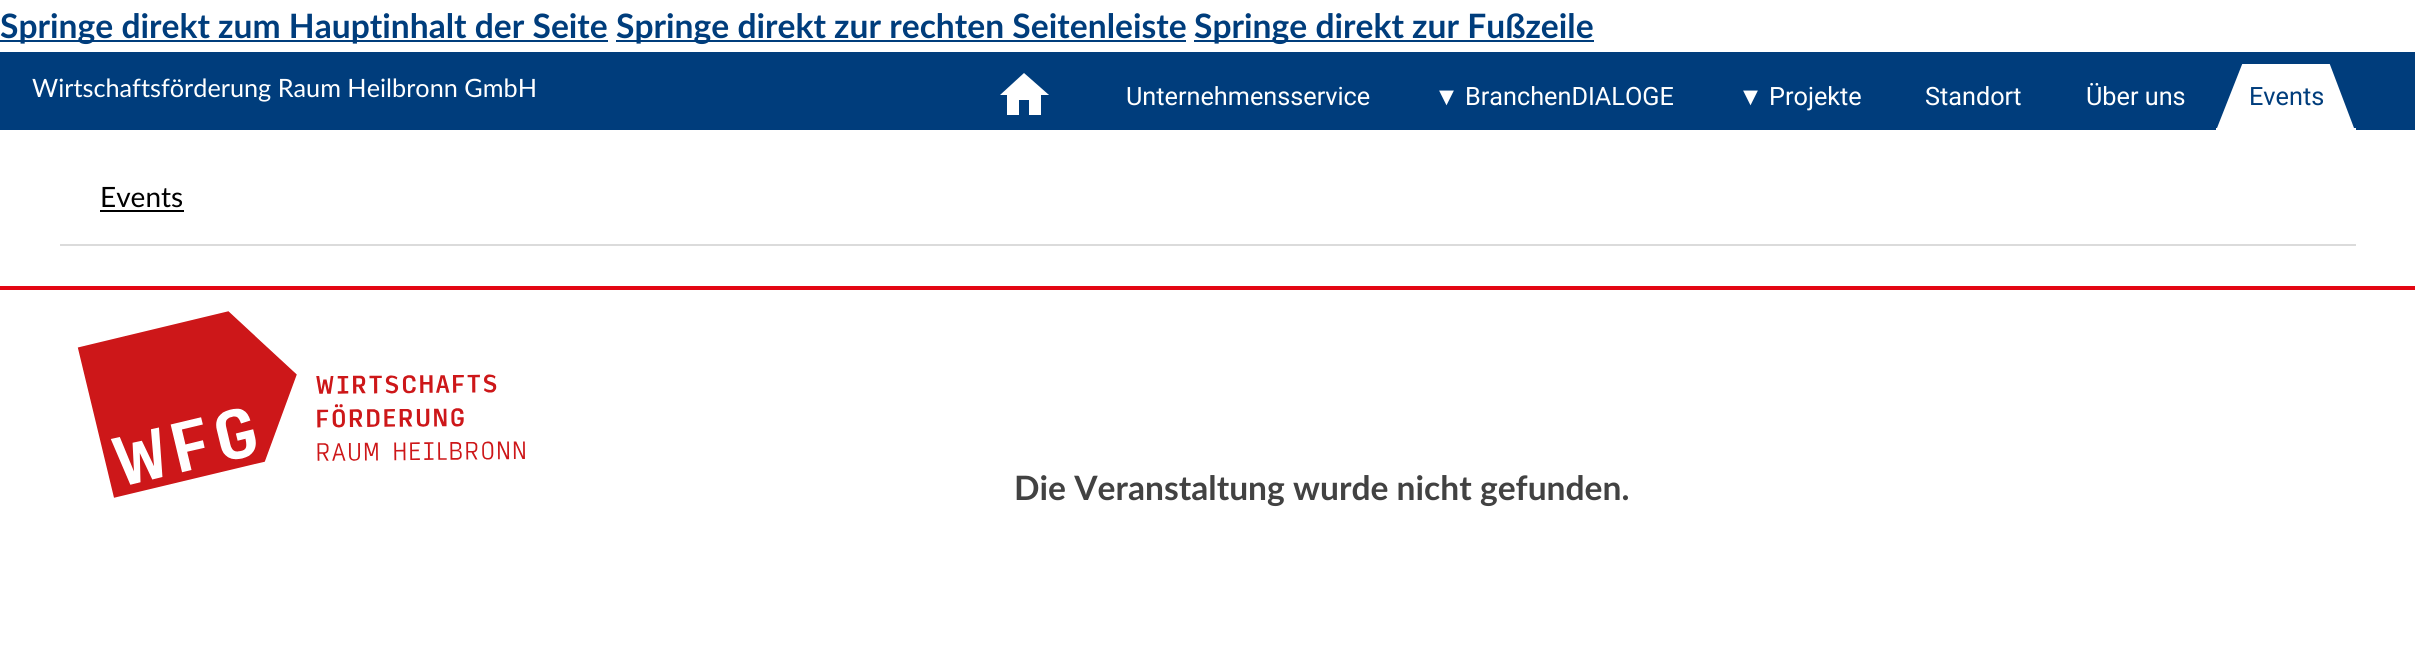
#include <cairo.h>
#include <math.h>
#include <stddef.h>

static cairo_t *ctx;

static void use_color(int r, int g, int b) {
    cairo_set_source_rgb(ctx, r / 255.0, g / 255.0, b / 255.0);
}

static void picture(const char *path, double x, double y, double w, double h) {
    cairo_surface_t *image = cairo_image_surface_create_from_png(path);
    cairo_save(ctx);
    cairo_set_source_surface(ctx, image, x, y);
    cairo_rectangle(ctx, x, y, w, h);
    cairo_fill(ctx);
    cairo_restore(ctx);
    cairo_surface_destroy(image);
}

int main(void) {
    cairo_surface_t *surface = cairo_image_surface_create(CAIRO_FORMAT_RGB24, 2415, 659);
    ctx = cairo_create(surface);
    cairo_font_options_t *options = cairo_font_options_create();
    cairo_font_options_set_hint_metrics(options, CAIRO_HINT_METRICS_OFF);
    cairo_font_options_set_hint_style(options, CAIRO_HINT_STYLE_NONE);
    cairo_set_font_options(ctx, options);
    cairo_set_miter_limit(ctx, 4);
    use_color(255, 255, 255);
    cairo_paint(ctx);
    use_color(0, 61, 124);
    cairo_rectangle(ctx, 0, 40, 608, 2);
    cairo_fill(ctx);
    cairo_select_font_face(ctx, "Lato", CAIRO_FONT_SLANT_NORMAL, CAIRO_FONT_WEIGHT_BOLD);
    cairo_set_font_size(ctx, 33.6);
    cairo_move_to(ctx, 0, 38);
    cairo_show_text(ctx, "Springe direkt zum Hauptinhalt der Seite");
    cairo_rectangle(ctx, 616, 40, 570, 2);
    cairo_fill(ctx);
    cairo_move_to(ctx, 616, 38);
    cairo_show_text(ctx, "Springe direkt zur rechten Seitenleiste");
    cairo_rectangle(ctx, 1194, 40, 400, 2);
    cairo_fill(ctx);
    cairo_move_to(ctx, 1194, 38);
    cairo_show_text(ctx, "Springe direkt zur Fußzeile");
    cairo_rectangle(ctx, 0, 52, 2415, 78);
    cairo_fill(ctx);
    cairo_select_font_face(ctx, "Lato", CAIRO_FONT_SLANT_NORMAL, CAIRO_FONT_WEIGHT_NORMAL);
    cairo_set_font_size(ctx, 25.25);
    use_color(255, 255, 255);
    cairo_move_to(ctx, 32, 97);
    cairo_show_text(ctx, "Wirtschaftsförderung Raum Heilbronn GmbH");
    cairo_new_path(ctx);
    cairo_move_to(ctx, 1019, 115);
    cairo_line_to(ctx, 1019, 100);
    cairo_line_to(ctx, 1029, 100);
    cairo_line_to(ctx, 1029, 115);
    cairo_line_to(ctx, 1041, 115);
    cairo_line_to(ctx, 1041, 95);
    cairo_line_to(ctx, 1049, 95);
    cairo_line_to(ctx, 1024, 73);
    cairo_line_to(ctx, 1000, 95);
    cairo_line_to(ctx, 1007, 95);
    cairo_line_to(ctx, 1007, 115);
    cairo_close_path(ctx);
    cairo_fill(ctx);
    cairo_select_font_face(ctx, "Roboto", CAIRO_FONT_SLANT_NORMAL, CAIRO_FONT_WEIGHT_NORMAL);
    cairo_move_to(ctx, 1126, 105);
    cairo_show_text(ctx, "Unternehmensservice");
    cairo_select_font_face(ctx, "Liberation Sans", CAIRO_FONT_SLANT_NORMAL, CAIRO_FONT_WEIGHT_NORMAL);
    cairo_move_to(ctx, 1434, 105);
    cairo_show_text(ctx, "▼");
    cairo_select_font_face(ctx, "Roboto", CAIRO_FONT_SLANT_NORMAL, CAIRO_FONT_WEIGHT_NORMAL);
    cairo_move_to(ctx, 1465, 105);
    cairo_show_text(ctx, "BranchenDIALOGE");
    cairo_select_font_face(ctx, "Liberation Sans", CAIRO_FONT_SLANT_NORMAL, CAIRO_FONT_WEIGHT_NORMAL);
    cairo_move_to(ctx, 1738, 105);
    cairo_show_text(ctx, "▼");
    cairo_select_font_face(ctx, "Roboto", CAIRO_FONT_SLANT_NORMAL, CAIRO_FONT_WEIGHT_NORMAL);
    cairo_move_to(ctx, 1769, 105);
    cairo_show_text(ctx, "Projekte");
    cairo_move_to(ctx, 1925, 105);
    cairo_show_text(ctx, "Standort");
    cairo_move_to(ctx, 2086, 105);
    cairo_show_text(ctx, "Über uns");
    cairo_rectangle(ctx, 2216, 64, 140, 66);
    cairo_fill(ctx);
    cairo_save(ctx);
    cairo_rectangle(ctx, 2288, 64, 68, 64);
    cairo_clip(ctx);
    use_color(0, 61, 124);
    cairo_new_path(ctx);
    cairo_move_to(ctx, 2329, 62);
    cairo_line_to(ctx, 2358, 62);
    cairo_line_to(ctx, 2358, 128);
    cairo_line_to(ctx, 2354, 128);
    cairo_close_path(ctx);
    cairo_fill(ctx);
    cairo_restore(ctx);
    cairo_save(ctx);
    cairo_rectangle(ctx, 2216, 64, 68, 64);
    cairo_clip(ctx);
    use_color(0, 61, 124);
    cairo_new_path(ctx);
    cairo_move_to(ctx, 2217, 128);
    cairo_line_to(ctx, 2214, 128);
    cairo_line_to(ctx, 2214, 62);
    cairo_line_to(ctx, 2243, 62);
    cairo_close_path(ctx);
    cairo_fill(ctx);
    cairo_restore(ctx);
    use_color(0, 61, 124);
    cairo_move_to(ctx, 2249, 105);
    cairo_show_text(ctx, "Events");
    use_color(219, 219, 219);
    cairo_rectangle(ctx, 60, 244, 2296, 2);
    cairo_fill(ctx);
    cairo_select_font_face(ctx, "Lato", CAIRO_FONT_SLANT_NORMAL, CAIRO_FONT_WEIGHT_NORMAL);
    cairo_set_font_size(ctx, 28);
    use_color(0, 0, 0);
    cairo_move_to(ctx, 100, 207);
    cairo_show_text(ctx, "Events");
    cairo_rectangle(ctx, 100, 210, 84, 2);
    cairo_fill(ctx);
    use_color(227, 6, 19);
    cairo_rectangle(ctx, 0, 286, 2415, 4);
    cairo_fill(ctx);
    picture("img1.png", 77, 311, 448, 187);
    cairo_select_font_face(ctx, "Lato", CAIRO_FONT_SLANT_NORMAL, CAIRO_FONT_WEIGHT_BOLD);
    cairo_set_font_size(ctx, 33.6);
    use_color(66, 66, 66);
    cairo_move_to(ctx, 1014, 500);
    cairo_show_text(ctx, "Die Veranstaltung wurde nicht gefunden.");
    cairo_surface_write_to_png(surface, "result.png");
    cairo_font_options_destroy(options);
    cairo_destroy(ctx);
    cairo_surface_destroy(surface);
    return 0;
}
